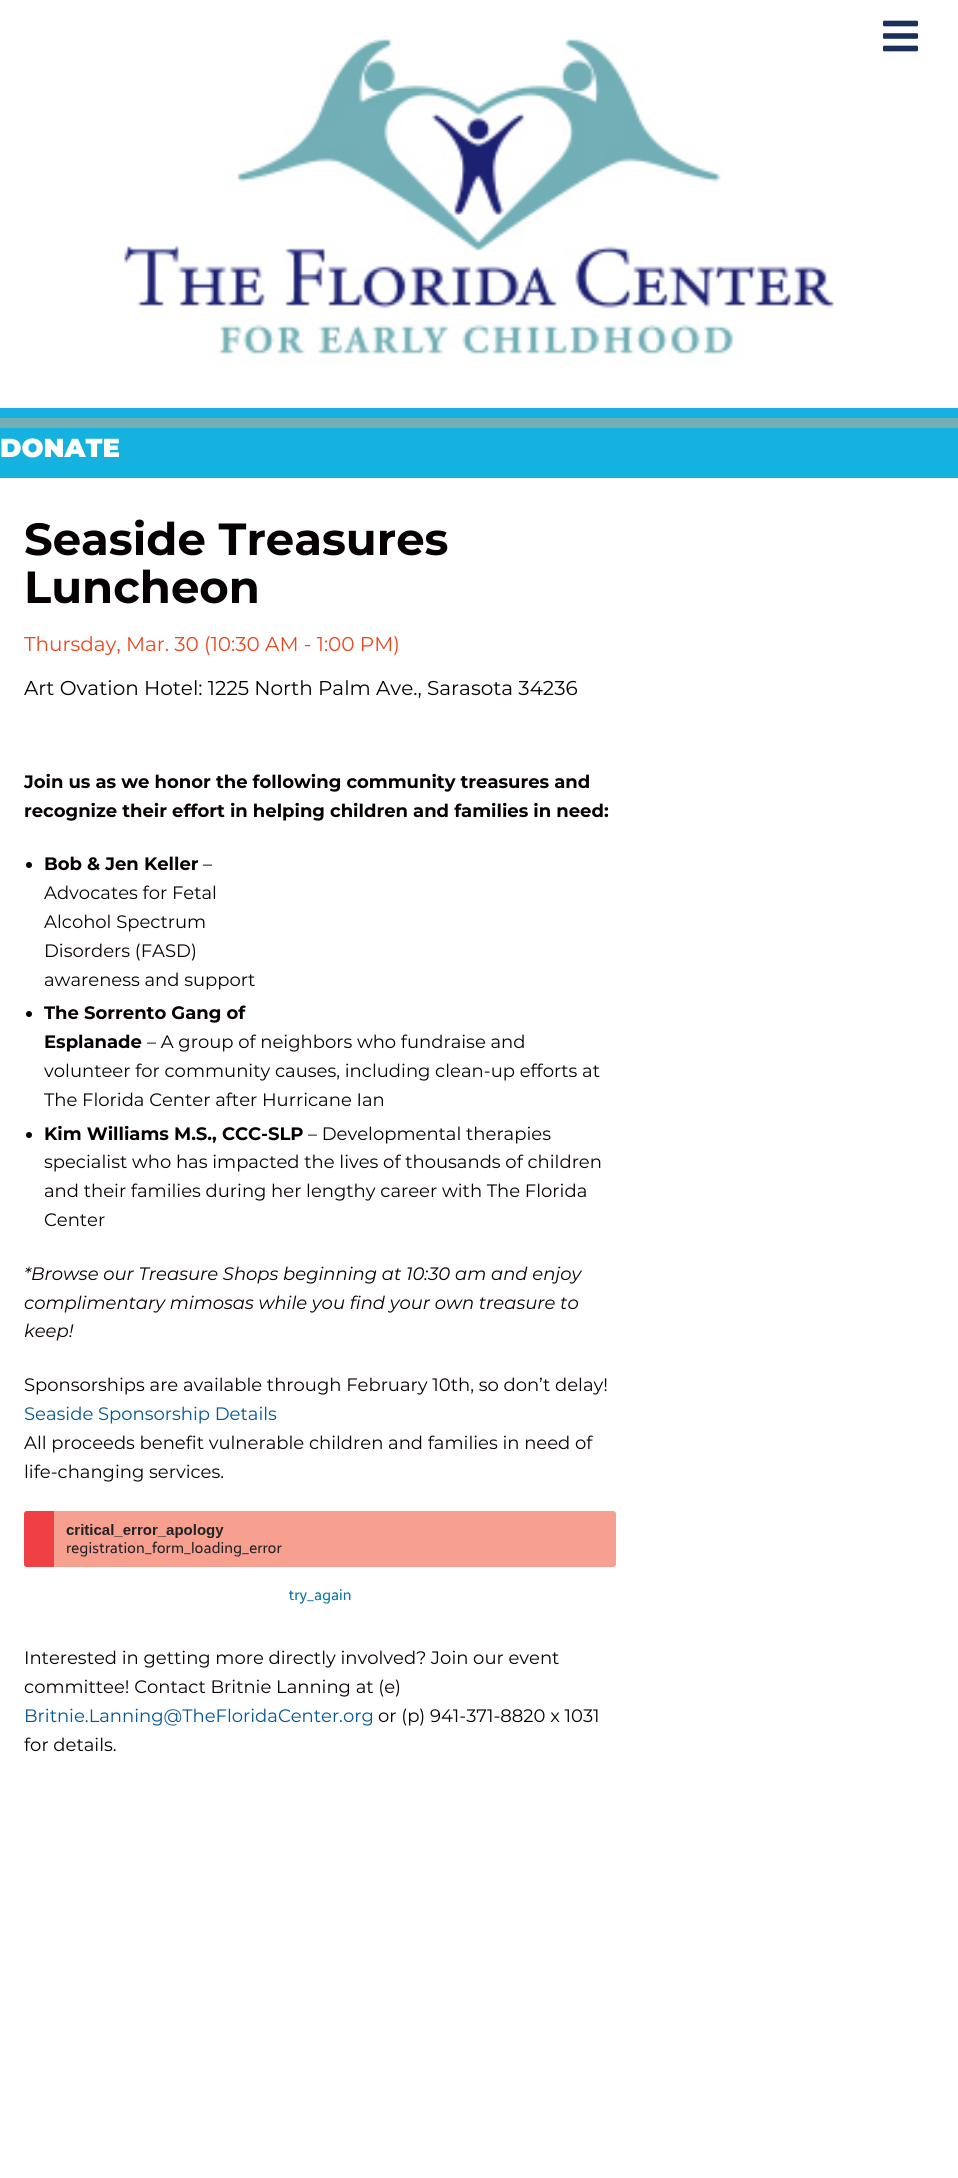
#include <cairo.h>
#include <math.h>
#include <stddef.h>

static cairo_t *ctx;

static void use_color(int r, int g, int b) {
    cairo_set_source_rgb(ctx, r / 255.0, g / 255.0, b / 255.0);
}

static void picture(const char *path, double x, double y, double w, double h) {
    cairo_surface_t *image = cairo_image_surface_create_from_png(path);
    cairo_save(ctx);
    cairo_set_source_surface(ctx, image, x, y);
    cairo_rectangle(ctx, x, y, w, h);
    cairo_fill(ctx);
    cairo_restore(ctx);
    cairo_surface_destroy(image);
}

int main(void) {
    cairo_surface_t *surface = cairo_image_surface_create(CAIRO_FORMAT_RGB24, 958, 2178);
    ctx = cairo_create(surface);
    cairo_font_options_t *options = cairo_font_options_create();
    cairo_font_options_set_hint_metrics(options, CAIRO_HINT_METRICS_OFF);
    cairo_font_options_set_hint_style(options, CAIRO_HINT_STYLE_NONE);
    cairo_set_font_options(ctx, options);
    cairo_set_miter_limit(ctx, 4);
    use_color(255, 255, 255);
    cairo_paint(ctx);
    picture("img1.png", 883, 20, 35, 32);
    picture("img2.png", 124, 39, 710, 326);
    use_color(21, 178, 223);
    cairo_rectangle(ctx, 0, 408, 958, 70);
    cairo_fill(ctx);
    use_color(115, 174, 182);
    cairo_rectangle(ctx, 0, 418, 958, 10);
    cairo_fill(ctx);
    cairo_select_font_face(ctx, "Montserrat Black", CAIRO_FONT_SLANT_NORMAL, CAIRO_FONT_WEIGHT_NORMAL);
    cairo_set_font_size(ctx, 26);
    use_color(255, 255, 255);
    cairo_move_to(ctx, 0, 457);
    cairo_show_text(ctx, "DONATE");
    cairo_select_font_face(ctx, "Montserrat", CAIRO_FONT_SLANT_NORMAL, CAIRO_FONT_WEIGHT_BOLD);
    cairo_set_font_size(ctx, 45);
    use_color(7, 0, 4);
    cairo_move_to(ctx, 24, 555);
    cairo_show_text(ctx, "Seaside Treasures");
    cairo_move_to(ctx, 24, 603);
    cairo_show_text(ctx, "Luncheon");
    cairo_select_font_face(ctx, "Montserrat", CAIRO_FONT_SLANT_NORMAL, CAIRO_FONT_WEIGHT_NORMAL);
    cairo_set_font_size(ctx, 20);
    use_color(236, 71, 28);
    cairo_move_to(ctx, 24, 651);
    cairo_show_text(ctx, "Thursday, Mar. 30 (10:30 AM - 1:00 PM)");
    use_color(7, 0, 4);
    cairo_move_to(ctx, 24, 695);
    cairo_show_text(ctx, "Art Ovation Hotel: 1225 North Palm Ave., Sarasota 34236");
    cairo_select_font_face(ctx, "Montserrat", CAIRO_FONT_SLANT_NORMAL, CAIRO_FONT_WEIGHT_BOLD);
    cairo_set_font_size(ctx, 18);
    cairo_move_to(ctx, 24, 788);
    cairo_show_text(ctx, "Join us as we honor the following community treasures and");
    cairo_move_to(ctx, 24, 817);
    cairo_show_text(ctx, "recognize their effort in helping children and families in need:");
    cairo_new_path(ctx);
    cairo_arc(ctx, 29, 865, 3, 0, 2 * M_PI);
    cairo_fill(ctx);
    cairo_move_to(ctx, 44, 870);
    cairo_show_text(ctx, "Bob & Jen Keller");
    cairo_select_font_face(ctx, "Montserrat", CAIRO_FONT_SLANT_NORMAL, CAIRO_FONT_WEIGHT_NORMAL);
    cairo_move_to(ctx, 203, 870);
    cairo_show_text(ctx, "–");
    cairo_move_to(ctx, 44, 899);
    cairo_show_text(ctx, "Advocates for Fetal");
    cairo_move_to(ctx, 44, 928);
    cairo_show_text(ctx, "Alcohol Spectrum");
    cairo_move_to(ctx, 44, 957);
    cairo_show_text(ctx, "Disorders (FASD)");
    cairo_move_to(ctx, 44, 986);
    cairo_show_text(ctx, "awareness and support");
    cairo_new_path(ctx);
    cairo_arc(ctx, 29, 1014, 3, 0, 2 * M_PI);
    cairo_fill(ctx);
    cairo_select_font_face(ctx, "Montserrat", CAIRO_FONT_SLANT_NORMAL, CAIRO_FONT_WEIGHT_BOLD);
    cairo_move_to(ctx, 44, 1019);
    cairo_show_text(ctx, "The Sorrento Gang of");
    cairo_move_to(ctx, 44, 1048);
    cairo_show_text(ctx, "Esplanade");
    cairo_select_font_face(ctx, "Montserrat", CAIRO_FONT_SLANT_NORMAL, CAIRO_FONT_WEIGHT_NORMAL);
    cairo_move_to(ctx, 147, 1048);
    cairo_show_text(ctx, "– A group of neighbors who fundraise and");
    cairo_move_to(ctx, 44, 1077);
    cairo_show_text(ctx, "volunteer for community causes, including clean-up efforts at");
    cairo_move_to(ctx, 44, 1106);
    cairo_show_text(ctx, "The Florida Center after Hurricane Ian");
    cairo_new_path(ctx);
    cairo_arc(ctx, 29, 1135, 3, 0, 2 * M_PI);
    cairo_fill(ctx);
    cairo_select_font_face(ctx, "Montserrat", CAIRO_FONT_SLANT_NORMAL, CAIRO_FONT_WEIGHT_BOLD);
    cairo_move_to(ctx, 44, 1140);
    cairo_show_text(ctx, "Kim Williams M.S., CCC-SLP");
    cairo_select_font_face(ctx, "Montserrat", CAIRO_FONT_SLANT_NORMAL, CAIRO_FONT_WEIGHT_NORMAL);
    cairo_move_to(ctx, 308, 1140);
    cairo_show_text(ctx, "– Developmental therapies");
    cairo_move_to(ctx, 44, 1168);
    cairo_show_text(ctx, "specialist who has impacted the lives of thousands of children");
    cairo_move_to(ctx, 44, 1197);
    cairo_show_text(ctx, "and their families during her lengthy career with The Florida");
    cairo_move_to(ctx, 44, 1226);
    cairo_show_text(ctx, "Center");
    cairo_select_font_face(ctx, "Montserrat", CAIRO_FONT_SLANT_ITALIC, CAIRO_FONT_WEIGHT_NORMAL);
    cairo_move_to(ctx, 24, 1280);
    cairo_show_text(ctx, "*Browse our Treasure Shops beginning at 10:30 am and enjoy");
    cairo_move_to(ctx, 24, 1309);
    cairo_show_text(ctx, "complimentary mimosas while you find your own treasure to");
    cairo_move_to(ctx, 24, 1337);
    cairo_show_text(ctx, "keep!");
    cairo_select_font_face(ctx, "Montserrat", CAIRO_FONT_SLANT_NORMAL, CAIRO_FONT_WEIGHT_NORMAL);
    cairo_move_to(ctx, 24, 1391);
    cairo_show_text(ctx, "Sponsorships are available through February 10th, so don’t delay!");
    use_color(0, 86, 150);
    cairo_move_to(ctx, 24, 1420);
    cairo_show_text(ctx, "Seaside Sponsorship Details");
    use_color(7, 0, 4);
    cairo_move_to(ctx, 24, 1449);
    cairo_show_text(ctx, "All proceeds benefit vulnerable children and families in need of");
    cairo_move_to(ctx, 24, 1478);
    cairo_show_text(ctx, "life-changing services.");
    picture("img3.png", 24, 1511, 592, 93);
    cairo_move_to(ctx, 24, 1664);
    cairo_show_text(ctx, "Interested in getting more directly involved? Join our event");
    cairo_move_to(ctx, 24, 1693);
    cairo_show_text(ctx, "committee! Contact Britnie Lanning at (e)");
    use_color(0, 86, 150);
    cairo_move_to(ctx, 24, 1722);
    cairo_show_text(ctx, "Britnie.Lanning@TheFloridaCenter.org");
    use_color(7, 0, 4);
    cairo_move_to(ctx, 378, 1722);
    cairo_show_text(ctx, "or (p) 941-371-8820 x 1031");
    cairo_move_to(ctx, 24, 1751);
    cairo_show_text(ctx, "for details.");
    cairo_surface_write_to_png(surface, "result.png");
    cairo_font_options_destroy(options);
    cairo_destroy(ctx);
    cairo_surface_destroy(surface);
    return 0;
}
